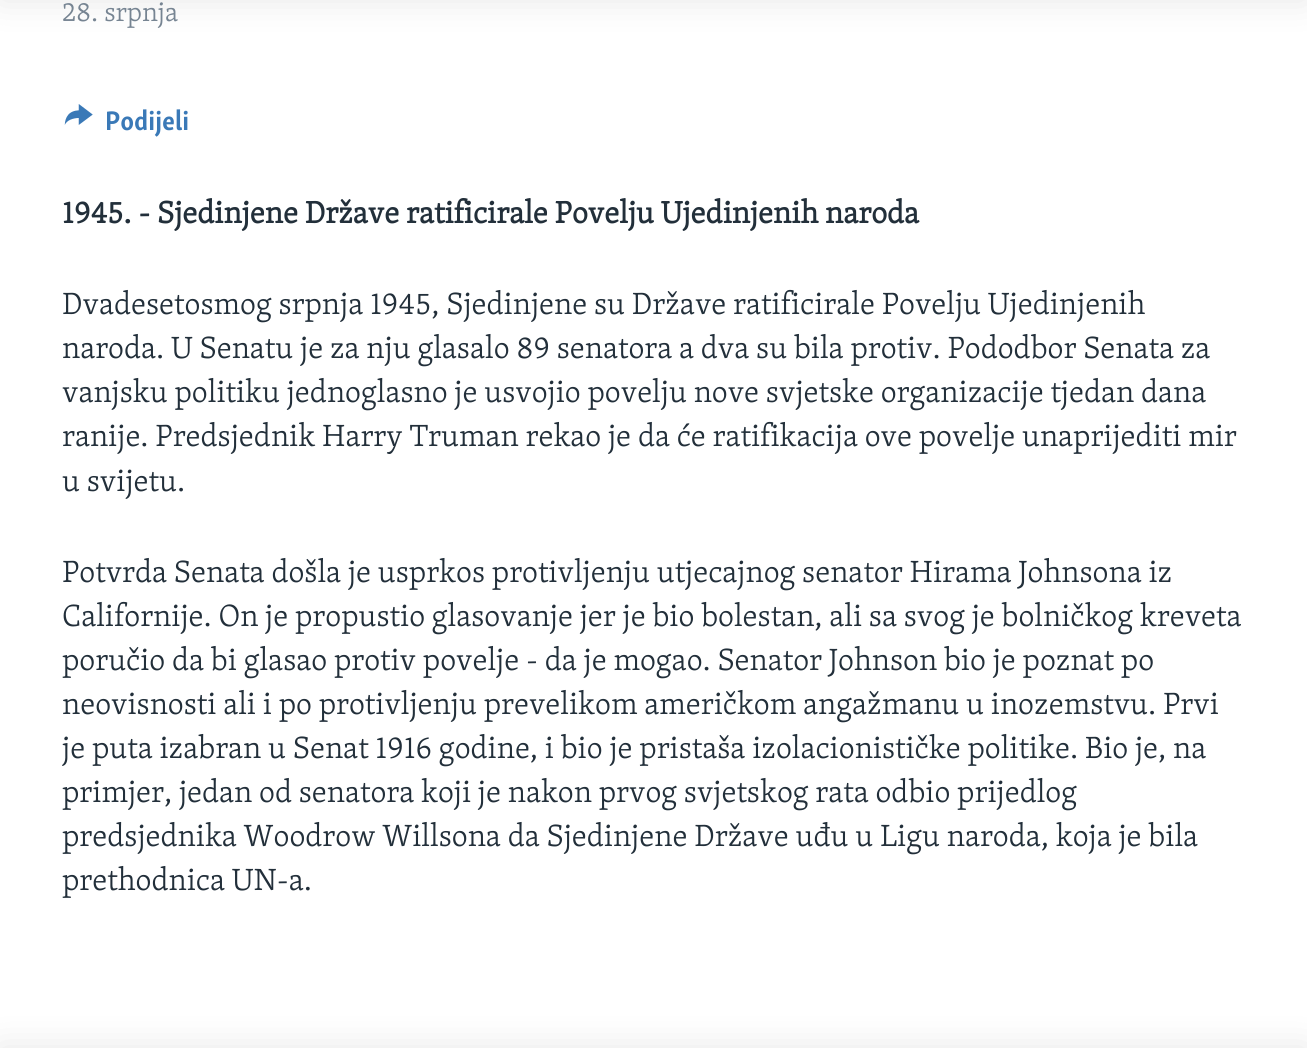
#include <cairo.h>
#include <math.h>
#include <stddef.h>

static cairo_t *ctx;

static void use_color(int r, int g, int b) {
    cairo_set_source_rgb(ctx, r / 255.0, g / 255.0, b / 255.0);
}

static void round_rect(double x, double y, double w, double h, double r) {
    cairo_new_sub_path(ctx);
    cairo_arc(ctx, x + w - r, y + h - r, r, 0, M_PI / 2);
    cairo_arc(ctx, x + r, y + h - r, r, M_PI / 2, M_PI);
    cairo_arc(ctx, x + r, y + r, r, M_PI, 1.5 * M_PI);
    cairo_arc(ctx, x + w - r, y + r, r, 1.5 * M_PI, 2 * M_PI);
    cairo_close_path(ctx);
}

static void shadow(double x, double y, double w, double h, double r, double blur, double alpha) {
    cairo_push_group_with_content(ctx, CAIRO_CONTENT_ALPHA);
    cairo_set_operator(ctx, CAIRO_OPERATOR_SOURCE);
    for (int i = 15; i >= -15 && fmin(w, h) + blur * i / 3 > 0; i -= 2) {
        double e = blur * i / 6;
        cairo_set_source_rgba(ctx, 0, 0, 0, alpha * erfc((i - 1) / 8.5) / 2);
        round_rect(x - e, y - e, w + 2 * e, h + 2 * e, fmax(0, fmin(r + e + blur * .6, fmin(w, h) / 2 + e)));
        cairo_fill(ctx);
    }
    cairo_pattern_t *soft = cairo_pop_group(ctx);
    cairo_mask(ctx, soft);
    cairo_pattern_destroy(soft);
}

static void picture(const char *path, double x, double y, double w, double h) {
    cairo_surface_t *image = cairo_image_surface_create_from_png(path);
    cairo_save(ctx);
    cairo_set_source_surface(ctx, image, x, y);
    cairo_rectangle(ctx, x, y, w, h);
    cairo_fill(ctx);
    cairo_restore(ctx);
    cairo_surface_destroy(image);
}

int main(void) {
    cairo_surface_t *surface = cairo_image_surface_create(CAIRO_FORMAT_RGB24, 1307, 1048);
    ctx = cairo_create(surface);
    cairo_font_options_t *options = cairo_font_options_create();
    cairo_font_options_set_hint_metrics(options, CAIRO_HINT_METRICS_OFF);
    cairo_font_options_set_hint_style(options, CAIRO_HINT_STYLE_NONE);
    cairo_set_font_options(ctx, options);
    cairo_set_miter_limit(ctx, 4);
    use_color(255, 255, 255);
    cairo_paint(ctx);
    use_color(0, 0, 0);
    shadow(0, -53, 1307, 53, 0, 17.5, 0.1);
    shadow(0, 1048, 1307, 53, 0, 17.5, 0.1);
    cairo_select_font_face(ctx, "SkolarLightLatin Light", CAIRO_FONT_SLANT_NORMAL, CAIRO_FONT_WEIGHT_NORMAL);
    cairo_set_font_size(ctx, 27.5);
    use_color(118, 132, 146);
    cairo_move_to(ctx, 62, 21);
    cairo_show_text(ctx, "28. srpnja");
    picture("img1.png", 64, 104, 29, 21);
    cairo_select_font_face(ctx, "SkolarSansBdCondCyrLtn", CAIRO_FONT_SLANT_NORMAL, CAIRO_FONT_WEIGHT_BOLD);
    use_color(58, 121, 183);
    cairo_move_to(ctx, 105, 130);
    cairo_show_text(ctx, "Podijeli");
    cairo_select_font_face(ctx, "SkolarLightLatin", CAIRO_FONT_SLANT_NORMAL, CAIRO_FONT_WEIGHT_BOLD);
    cairo_set_font_size(ctx, 31.5);
    use_color(34, 47, 58);
    cairo_move_to(ctx, 62, 223);
    cairo_show_text(ctx, "1945. - Sjedinjene Države ratificirale Povelju Ujedinjenih naroda");
    cairo_select_font_face(ctx, "SkolarLightLatin Light", CAIRO_FONT_SLANT_NORMAL, CAIRO_FONT_WEIGHT_NORMAL);
    cairo_move_to(ctx, 62, 314);
    cairo_show_text(ctx, "Dvadesetosmog srpnja 1945, Sjedinjene su Države ratificirale Povelju Ujedinjenih");
    cairo_move_to(ctx, 62, 358);
    cairo_show_text(ctx, "naroda. U Senatu je za nju glasalo 89 senatora a dva su bila protiv. Pododbor Senata za");
    cairo_move_to(ctx, 62, 402);
    cairo_show_text(ctx, "vanjsku politiku jednoglasno je usvojio povelju nove svjetske organizacije tjedan dana");
    cairo_move_to(ctx, 62, 446);
    cairo_show_text(ctx, "ranije. Predsjednik Harry Truman rekao je da će ratifikacija ove povelje unaprijediti mir");
    cairo_move_to(ctx, 62, 491);
    cairo_show_text(ctx, "u svijetu.");
    cairo_move_to(ctx, 62, 582);
    cairo_show_text(ctx, "Potvrda Senata došla je usprkos protivljenju utjecajnog senator Hirama Johnsona iz");
    cairo_move_to(ctx, 62, 626);
    cairo_show_text(ctx, "Californije. On je propustio glasovanje jer je bio bolestan, ali sa svog je bolničkog kreveta");
    cairo_move_to(ctx, 62, 670);
    cairo_show_text(ctx, "poručio da bi glasao protiv povelje - da je mogao. Senator Johnson bio je poznat po");
    cairo_move_to(ctx, 62, 714);
    cairo_show_text(ctx, "neovisnosti ali i po protivljenju prevelikom američkom angažmanu u inozemstvu. Prvi");
    cairo_move_to(ctx, 62, 758);
    cairo_show_text(ctx, "je puta izabran u Senat 1916 godine, i bio je pristaša izolacionističke politike. Bio je, na");
    cairo_move_to(ctx, 62, 802);
    cairo_show_text(ctx, "primjer, jedan od senatora koji je nakon prvog svjetskog rata odbio prijedlog");
    cairo_move_to(ctx, 62, 846);
    cairo_show_text(ctx, "predsjednika Woodrow Willsona da Sjedinjene Države uđu u Ligu naroda, koja je bila");
    cairo_move_to(ctx, 62, 890);
    cairo_show_text(ctx, "prethodnica UN-a.");
    cairo_surface_write_to_png(surface, "result.png");
    cairo_font_options_destroy(options);
    cairo_destroy(ctx);
    cairo_surface_destroy(surface);
    return 0;
}
